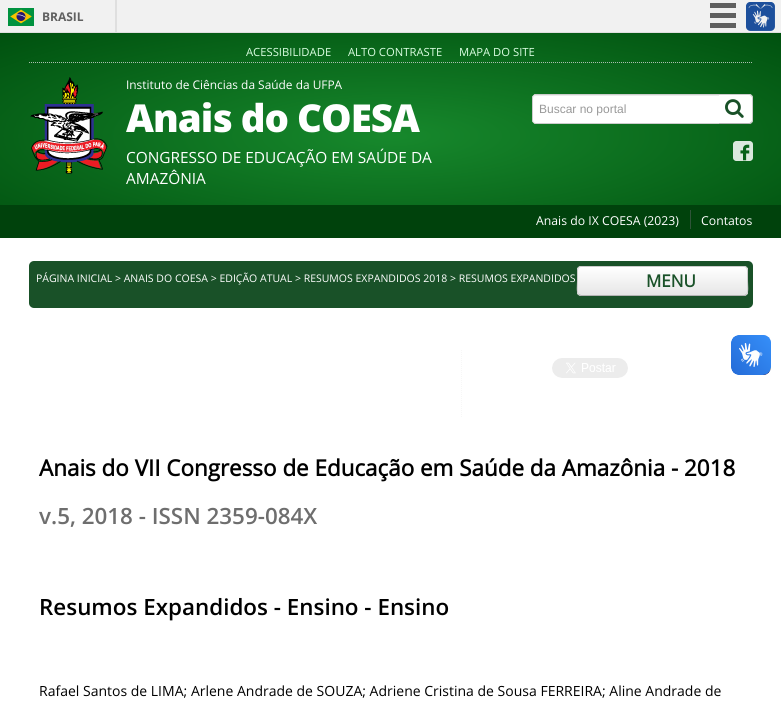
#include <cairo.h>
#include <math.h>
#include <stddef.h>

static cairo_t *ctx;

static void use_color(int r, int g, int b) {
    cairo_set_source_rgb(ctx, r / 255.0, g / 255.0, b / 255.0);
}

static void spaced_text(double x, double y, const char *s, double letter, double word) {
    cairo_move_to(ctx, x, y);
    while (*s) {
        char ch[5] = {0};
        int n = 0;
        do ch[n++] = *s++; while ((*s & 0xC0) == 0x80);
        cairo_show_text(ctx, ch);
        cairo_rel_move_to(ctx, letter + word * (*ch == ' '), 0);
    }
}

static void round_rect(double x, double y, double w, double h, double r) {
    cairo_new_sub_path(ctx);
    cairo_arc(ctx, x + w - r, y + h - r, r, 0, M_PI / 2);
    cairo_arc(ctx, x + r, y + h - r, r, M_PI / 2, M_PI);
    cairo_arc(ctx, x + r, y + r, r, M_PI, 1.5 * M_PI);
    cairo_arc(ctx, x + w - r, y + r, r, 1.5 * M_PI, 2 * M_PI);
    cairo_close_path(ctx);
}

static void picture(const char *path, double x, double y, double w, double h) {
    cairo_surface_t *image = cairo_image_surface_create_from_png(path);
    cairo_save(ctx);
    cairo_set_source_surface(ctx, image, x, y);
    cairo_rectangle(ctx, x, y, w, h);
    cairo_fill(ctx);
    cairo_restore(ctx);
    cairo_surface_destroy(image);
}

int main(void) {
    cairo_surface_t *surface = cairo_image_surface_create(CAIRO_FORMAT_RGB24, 781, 709);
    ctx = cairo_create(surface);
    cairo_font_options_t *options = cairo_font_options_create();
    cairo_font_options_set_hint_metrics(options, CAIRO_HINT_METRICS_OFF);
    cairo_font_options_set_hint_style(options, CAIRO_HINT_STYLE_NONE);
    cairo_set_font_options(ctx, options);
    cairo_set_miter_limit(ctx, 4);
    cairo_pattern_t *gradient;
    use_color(255, 255, 255);
    cairo_paint(ctx);
    use_color(241, 241, 241);
    cairo_rectangle(ctx, 0, 0, 781, 32);
    cairo_fill(ctx);
    use_color(223, 223, 223);
    cairo_rectangle(ctx, 0, 32, 781, 1);
    cairo_fill(ctx);
    cairo_rectangle(ctx, 115, 0, 2, 32);
    cairo_fill(ctx);
    picture("img1.png", 8, 8, 26, 18);
    cairo_select_font_face(ctx, "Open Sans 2", CAIRO_FONT_SLANT_NORMAL, CAIRO_FONT_WEIGHT_BOLD);
    cairo_set_font_size(ctx, 12);
    use_color(96, 96, 96);
    cairo_move_to(ctx, 42, 21);
    cairo_show_text(ctx, "BRASIL");
    cairo_rectangle(ctx, 710, 3, 26, 5);
    cairo_fill(ctx);
    cairo_rectangle(ctx, 710, 13, 26, 5);
    cairo_fill(ctx);
    cairo_rectangle(ctx, 710, 23, 26, 5);
    cairo_fill(ctx);
    picture("img2.png", 746, 2, 29, 29);
    gradient = cairo_pattern_create_radial(0, 0, 0, 0, 0, 1);
    cairo_pattern_set_matrix(gradient, &(cairo_matrix_t){1.0 / 552, 0, 0, 1.0 / 145, -1.0 * 391 / 552, -1.0 * 136 / 145});
    cairo_pattern_add_color_stop_rgba(gradient, 0.01, 0.09, 0.533, 0.173, 1);
    cairo_pattern_add_color_stop_rgba(gradient, 1, 0, 0.318, 0.059, 1);
    cairo_set_source(ctx, gradient);
    cairo_pattern_destroy(gradient);
    cairo_rectangle(ctx, 0, 33, 781, 172);
    cairo_fill(ctx);
    cairo_new_path(ctx);
    cairo_move_to(ctx, 29, 62.5);
    cairo_line_to(ctx, 753, 62.5);
    use_color(171, 190, 176);
    cairo_set_line_width(ctx, 1);
    cairo_set_dash(ctx, (double[]){1, 1}, 2, 0);
    cairo_stroke(ctx);
    cairo_select_font_face(ctx, "Open Sans", CAIRO_FONT_SLANT_NORMAL, CAIRO_FONT_WEIGHT_NORMAL);
    cairo_set_font_size(ctx, 11.25);
    use_color(220, 255, 227);
    cairo_move_to(ctx, 246, 56);
    cairo_show_text(ctx, "ACESSIBILIDADE");
    cairo_move_to(ctx, 348, 56);
    cairo_show_text(ctx, "ALTO CONTRASTE");
    cairo_move_to(ctx, 459, 56);
    cairo_show_text(ctx, "MAPA DO SITE");
    picture("img3.png", 30, 77, 78, 97);
    cairo_set_font_size(ctx, 11.9);
    use_color(255, 255, 255);
    cairo_move_to(ctx, 126, 89);
    cairo_show_text(ctx, "Instituto de Ciências da Saúde da UFPA");
    cairo_select_font_face(ctx, "Open Sans ExtraBold", CAIRO_FONT_SLANT_NORMAL, CAIRO_FONT_WEIGHT_NORMAL);
    cairo_set_font_size(ctx, 38.5);
    spaced_text(126, 132, "Anais do COESA", -1, 0);
    cairo_select_font_face(ctx, "Open Sans", CAIRO_FONT_SLANT_NORMAL, CAIRO_FONT_WEIGHT_NORMAL);
    cairo_set_font_size(ctx, 15.4);
    cairo_move_to(ctx, 126, 163);
    cairo_show_text(ctx, "CONGRESSO DE EDUCAÇÃO EM SAÚDE DA");
    cairo_move_to(ctx, 126, 184);
    cairo_show_text(ctx, "AMAZÔNIA");
    cairo_new_path(ctx);
    cairo_move_to(ctx, 536, 94);
    cairo_line_to(ctx, 720, 94);
    cairo_line_to(ctx, 720, 124);
    cairo_line_to(ctx, 536, 124);
    cairo_curve_to(ctx, 534, 124, 532, 122, 532, 120);
    cairo_line_to(ctx, 532, 98);
    cairo_curve_to(ctx, 532, 96, 534, 94, 536, 94);
    cairo_close_path(ctx);
    cairo_fill(ctx);
    use_color(236, 236, 236);
    cairo_new_path(ctx);
    cairo_move_to(ctx, 536, 96);
    cairo_line_to(ctx, 720, 96);
    cairo_line_to(ctx, 720, 95);
    cairo_line_to(ctx, 536, 95);
    cairo_curve_to(ctx, 534, 95, 533, 97, 533, 99);
    cairo_curve_to(ctx, 533, 97, 534, 96, 536, 96);
    cairo_close_path(ctx);
    cairo_fill(ctx);
    use_color(204, 204, 204);
    cairo_set_fill_rule(ctx, CAIRO_FILL_RULE_EVEN_ODD);
    cairo_new_path(ctx);
    cairo_move_to(ctx, 536, 94);
    cairo_line_to(ctx, 720, 94);
    cairo_line_to(ctx, 720, 124);
    cairo_line_to(ctx, 536, 124);
    cairo_curve_to(ctx, 534, 124, 532, 122, 532, 120);
    cairo_line_to(ctx, 532, 98);
    cairo_curve_to(ctx, 532, 96, 534, 94, 536, 94);
    cairo_close_path(ctx);
    cairo_move_to(ctx, 536, 95);
    cairo_line_to(ctx, 720, 95);
    cairo_line_to(ctx, 720, 123);
    cairo_line_to(ctx, 536, 123);
    cairo_curve_to(ctx, 534, 123, 533, 122, 533, 120);
    cairo_line_to(ctx, 533, 98);
    cairo_curve_to(ctx, 533, 96, 534, 95, 536, 95);
    cairo_close_path(ctx);
    cairo_fill(ctx);
    cairo_select_font_face(ctx, "Liberation Sans", CAIRO_FONT_SLANT_NORMAL, CAIRO_FONT_WEIGHT_NORMAL);
    cairo_set_font_size(ctx, 12);
    use_color(153, 153, 153);
    cairo_move_to(ctx, 539, 113);
    cairo_show_text(ctx, "Buscar no portal");
    use_color(255, 255, 255);
    cairo_new_path(ctx);
    cairo_move_to(ctx, 719, 94);
    cairo_line_to(ctx, 749, 94);
    cairo_curve_to(ctx, 751, 94, 753, 96, 753, 98);
    cairo_line_to(ctx, 753, 120);
    cairo_curve_to(ctx, 753, 122, 751, 124, 749, 124);
    cairo_line_to(ctx, 719, 124);
    cairo_close_path(ctx);
    cairo_fill(ctx);
    use_color(204, 204, 204);
    cairo_set_fill_rule(ctx, CAIRO_FILL_RULE_WINDING);
    cairo_new_path(ctx);
    cairo_move_to(ctx, 719, 94);
    cairo_line_to(ctx, 719, 95);
    cairo_line_to(ctx, 749, 95);
    cairo_curve_to(ctx, 750, 95, 750.5, 95.5, 751, 96);
    cairo_line_to(ctx, 752, 95);
    cairo_curve_to(ctx, 751, 94.5, 750, 94, 749, 94);
    cairo_close_path(ctx);
    cairo_fill(ctx);
    cairo_new_path(ctx);
    cairo_move_to(ctx, 751, 122);
    cairo_curve_to(ctx, 751.5, 121.5, 752, 121, 752, 120);
    cairo_line_to(ctx, 752, 98);
    cairo_curve_to(ctx, 752, 97, 751.5, 96.5, 751, 96);
    cairo_line_to(ctx, 752, 95);
    cairo_curve_to(ctx, 752.5, 96, 753, 97, 753, 98);
    cairo_line_to(ctx, 753, 120);
    cairo_curve_to(ctx, 753, 121, 752.5, 122, 752, 123);
    cairo_close_path(ctx);
    cairo_fill(ctx);
    use_color(179, 179, 179);
    cairo_new_path(ctx);
    cairo_move_to(ctx, 719, 123);
    cairo_line_to(ctx, 719, 124);
    cairo_line_to(ctx, 749, 124);
    cairo_curve_to(ctx, 750, 124, 751, 123.5, 752, 123);
    cairo_line_to(ctx, 751, 122);
    cairo_curve_to(ctx, 750.5, 122.5, 750, 123, 749, 123);
    cairo_close_path(ctx);
    cairo_fill(ctx);
    picture("img4.png", 725, 99, 19, 19);
    picture("img5.png", 733, 141, 20, 20);
    use_color(0, 66, 12);
    cairo_rectangle(ctx, 0, 205, 781, 33);
    cairo_fill(ctx);
    cairo_select_font_face(ctx, "Open Sans", CAIRO_FONT_SLANT_NORMAL, CAIRO_FONT_WEIGHT_NORMAL);
    cairo_set_font_size(ctx, 12.25);
    use_color(255, 255, 255);
    cairo_move_to(ctx, 536, 225);
    cairo_show_text(ctx, "Anais do IX COESA (2023)");
    use_color(47, 84, 57);
    cairo_rectangle(ctx, 690, 210, 1, 19);
    cairo_fill(ctx);
    use_color(255, 255, 255);
    cairo_move_to(ctx, 701, 225);
    cairo_show_text(ctx, "Contatos");
    use_color(25, 81, 40);
    round_rect(29, 261, 724, 47, 5);
    cairo_fill(ctx);
    cairo_set_font_size(ctx, 10.5);
    use_color(255, 255, 255);
    cairo_move_to(ctx, 36, 282);
    cairo_show_text(ctx, "PÁGINA INICIAL > ANAIS DO COESA > EDIÇÃO ATUAL > RESUMOS EXPANDIDOS 2018 > RESUMOS EXPANDIDOS");
    use_color(245, 245, 245);
    round_rect(577, 266, 171, 30, 4);
    cairo_fill(ctx);
    cairo_save(ctx);
    round_rect(577, 266, 171, 30, 4);
    cairo_clip(ctx);
    gradient = cairo_pattern_create_linear(663, 267, 663, 295);
    cairo_pattern_add_color_stop_rgba(gradient, 0, 1, 1, 1, 1);
    cairo_pattern_add_color_stop_rgba(gradient, 1, 0.902, 0.902, 0.902, 1);
    cairo_set_source(ctx, gradient);
    cairo_pattern_destroy(gradient);
    cairo_rectangle(ctx, 577, 267, 171, 28);
    cairo_fill(ctx);
    cairo_restore(ctx);
    cairo_new_path(ctx);
    cairo_move_to(ctx, 746.5, 294.5);
    cairo_line_to(ctx, 744.5, 295.5);
    cairo_line_to(ctx, 608, 295.5);
    cairo_line_to(ctx, 581, 295.5);
    cairo_line_to(ctx, 578.5, 294.5);
    use_color(179, 179, 179);
    cairo_set_dash(ctx, NULL, 0, 0);
    cairo_stroke(ctx);
    cairo_new_path(ctx);
    cairo_move_to(ctx, 578.5, 294.5);
    cairo_curve_to(ctx, 576.5, 292.5, 577.5, 284, 577.5, 281);
    cairo_line_to(ctx, 577.5, 273.5);
    cairo_curve_to(ctx, 577.5, 271, 577, 266.5, 581, 266.5);
    cairo_line_to(ctx, 744, 266.5);
    cairo_curve_to(ctx, 748, 266.5, 747.5, 271, 747.5, 273.5);
    cairo_line_to(ctx, 747.5, 281);
    cairo_curve_to(ctx, 747.5, 284, 748.5, 292.5, 746.5, 294.5);
    use_color(204, 204, 204);
    cairo_stroke(ctx);
    cairo_select_font_face(ctx, "Open Sans", CAIRO_FONT_SLANT_NORMAL, CAIRO_FONT_WEIGHT_BOLD);
    cairo_set_font_size(ctx, 17);
    use_color(25, 81, 40);
    cairo_move_to(ctx, 646, 287);
    cairo_show_text(ctx, "MENU");
    cairo_new_path(ctx);
    cairo_move_to(ctx, 461.5, 350);
    cairo_line_to(ctx, 461.5, 418);
    use_color(247, 247, 247);
    cairo_set_dash(ctx, (double[]){1, 1}, 2, 0);
    cairo_stroke(ctx);
    picture("img6.png", 552, 358, 76, 20);
    cairo_set_font_size(ctx, 22.4);
    use_color(0, 0, 0);
    cairo_move_to(ctx, 39, 476);
    cairo_show_text(ctx, "Anais do VII Congresso de Educação em Saúde da Amazônia - 2018");
    cairo_select_font_face(ctx, "Open Sans SemiBold", CAIRO_FONT_SLANT_NORMAL, CAIRO_FONT_WEIGHT_NORMAL);
    use_color(110, 110, 110);
    cairo_move_to(ctx, 39, 524);
    cairo_show_text(ctx, "v.5, 2018 - ISSN 2359-084X");
    use_color(0, 0, 0);
    cairo_move_to(ctx, 39, 615);
    cairo_show_text(ctx, "Resumos Expandidos - Ensino - Ensino");
    cairo_select_font_face(ctx, "Open Sans", CAIRO_FONT_SLANT_NORMAL, CAIRO_FONT_WEIGHT_NORMAL);
    cairo_set_font_size(ctx, 14);
    cairo_move_to(ctx, 39, 696);
    cairo_show_text(ctx, "Rafael Santos de LIMA; Arlene Andrade de SOUZA; Adriene Cristina de Sousa FERREIRA; Aline Andrade de");
    picture("img7.png", 731, 335, 40, 40);
    picture("img8.png", 731, 335, 40, 40);
    cairo_surface_write_to_png(surface, "result.png");
    cairo_font_options_destroy(options);
    cairo_destroy(ctx);
    cairo_surface_destroy(surface);
    return 0;
}
